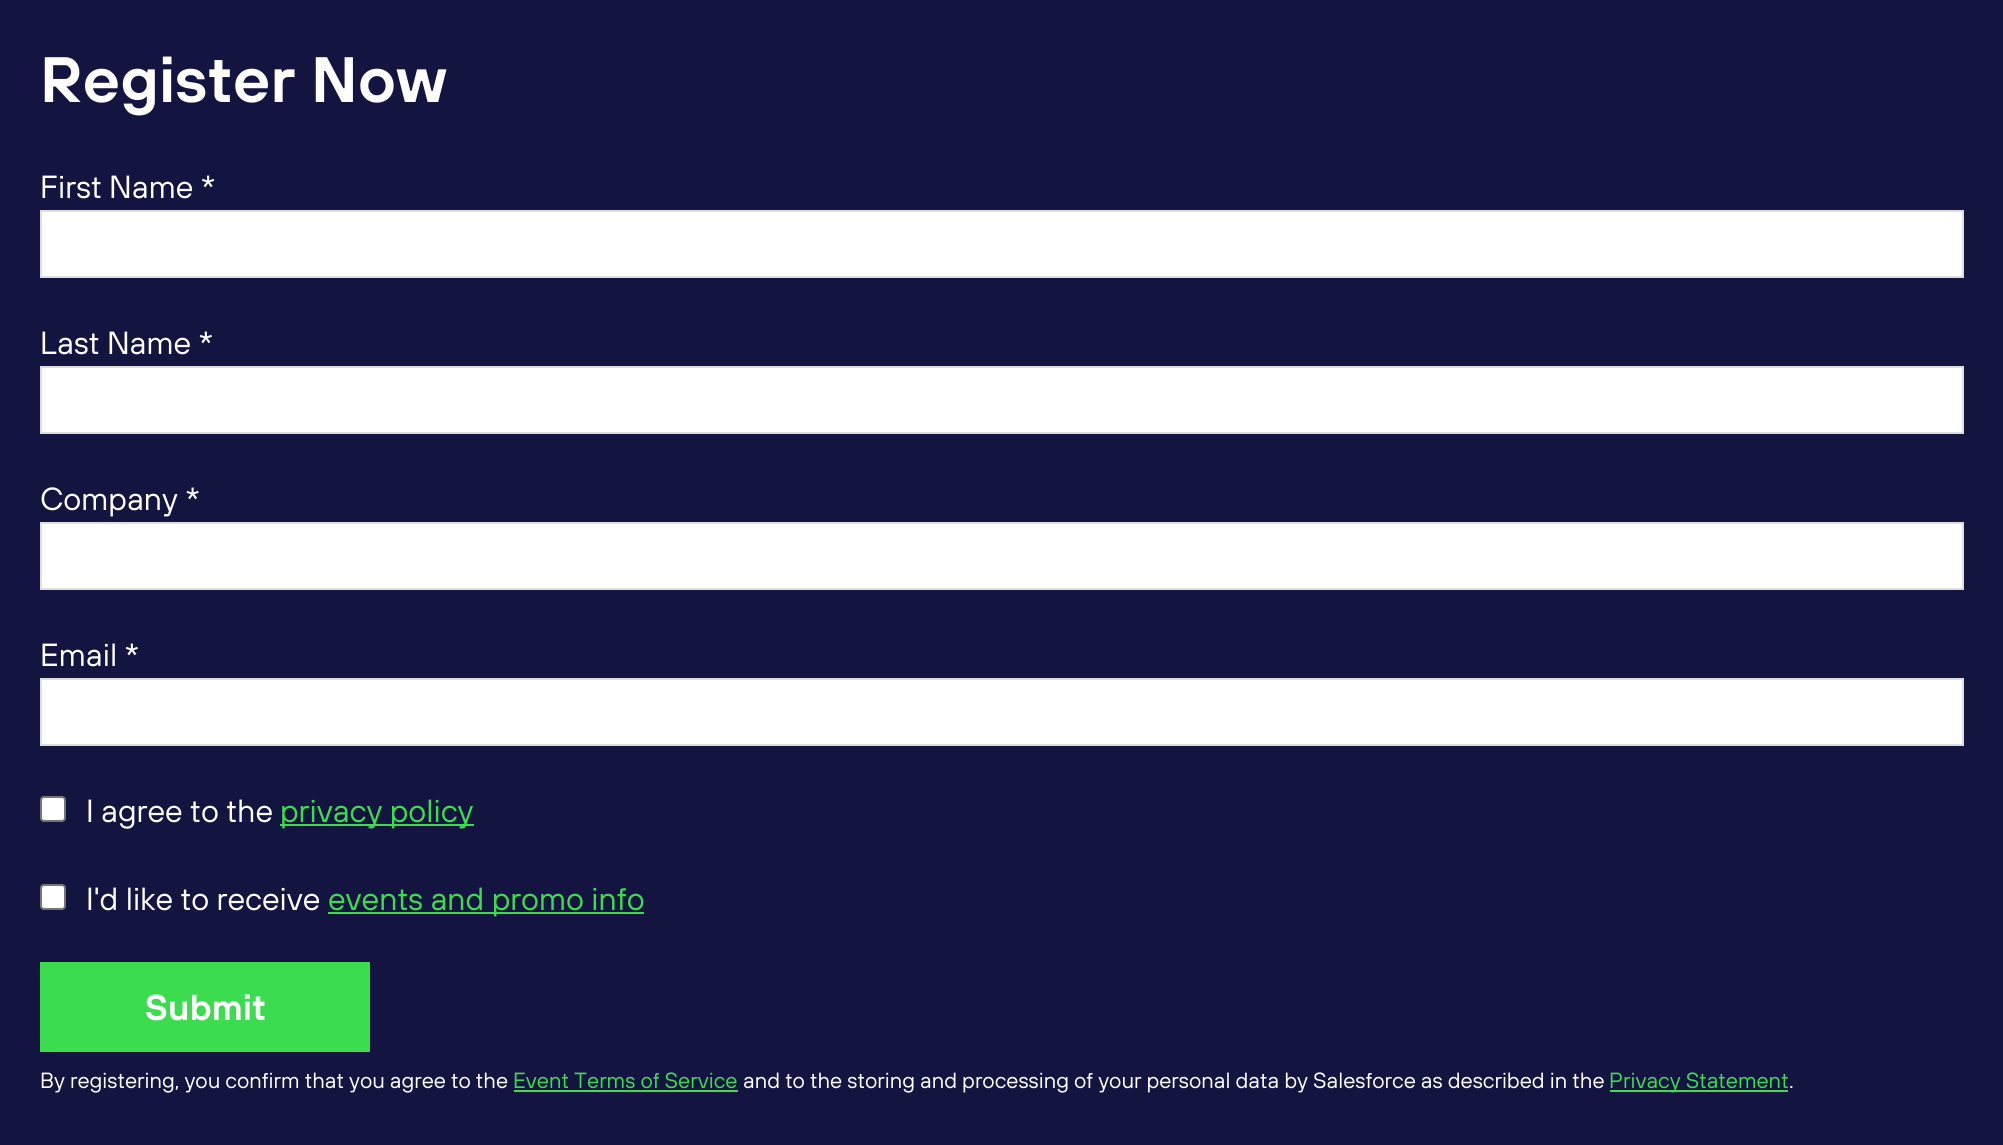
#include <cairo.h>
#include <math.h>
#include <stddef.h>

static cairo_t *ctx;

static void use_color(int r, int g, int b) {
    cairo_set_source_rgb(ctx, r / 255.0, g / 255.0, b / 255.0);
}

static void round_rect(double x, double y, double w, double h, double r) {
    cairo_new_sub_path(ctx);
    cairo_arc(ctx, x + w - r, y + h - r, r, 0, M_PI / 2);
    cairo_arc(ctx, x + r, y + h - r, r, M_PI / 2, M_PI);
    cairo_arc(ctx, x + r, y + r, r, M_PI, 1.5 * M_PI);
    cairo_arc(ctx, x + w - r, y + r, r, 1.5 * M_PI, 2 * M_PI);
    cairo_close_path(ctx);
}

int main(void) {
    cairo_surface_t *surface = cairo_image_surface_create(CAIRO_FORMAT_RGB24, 2003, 1145);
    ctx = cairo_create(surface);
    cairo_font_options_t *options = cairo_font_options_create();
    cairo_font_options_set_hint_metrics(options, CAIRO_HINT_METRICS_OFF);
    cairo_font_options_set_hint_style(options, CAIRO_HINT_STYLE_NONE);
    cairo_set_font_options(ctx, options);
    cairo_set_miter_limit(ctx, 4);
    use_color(20, 20, 65);
    cairo_paint(ctx);
    cairo_select_font_face(ctx, "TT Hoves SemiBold", CAIRO_FONT_SLANT_NORMAL, CAIRO_FONT_WEIGHT_NORMAL);
    cairo_set_font_size(ctx, 64);
    use_color(255, 255, 255);
    cairo_move_to(ctx, 40, 102);
    cairo_show_text(ctx, "Register Now");
    cairo_select_font_face(ctx, "TT Hoves", CAIRO_FONT_SLANT_NORMAL, CAIRO_FONT_WEIGHT_NORMAL);
    cairo_set_font_size(ctx, 32);
    cairo_move_to(ctx, 40, 198);
    cairo_show_text(ctx, "First Name *");
    cairo_rectangle(ctx, 41, 211, 1922, 66);
    cairo_fill_preserve(ctx);
    use_color(222, 222, 222);
    cairo_stroke(ctx);
    use_color(255, 255, 255);
    cairo_move_to(ctx, 40, 354);
    cairo_show_text(ctx, "Last Name *");
    cairo_rectangle(ctx, 41, 367, 1922, 66);
    cairo_fill_preserve(ctx);
    use_color(222, 222, 222);
    cairo_stroke(ctx);
    use_color(255, 255, 255);
    cairo_move_to(ctx, 40, 510);
    cairo_show_text(ctx, "Company *");
    cairo_rectangle(ctx, 41, 523, 1922, 66);
    cairo_fill_preserve(ctx);
    use_color(222, 222, 222);
    cairo_stroke(ctx);
    use_color(255, 255, 255);
    cairo_move_to(ctx, 40, 666);
    cairo_show_text(ctx, "Email *");
    cairo_rectangle(ctx, 41, 679, 1922, 66);
    cairo_fill_preserve(ctx);
    use_color(222, 222, 222);
    cairo_stroke(ctx);
    use_color(255, 255, 255);
    round_rect(41, 797, 24, 24, 3);
    cairo_fill_preserve(ctx);
    use_color(118, 118, 118);
    cairo_stroke(ctx);
    use_color(255, 255, 255);
    cairo_move_to(ctx, 86, 822);
    cairo_show_text(ctx, "I agree to the");
    use_color(60, 220, 80);
    cairo_rectangle(ctx, 280, 824, 194, 2);
    cairo_fill(ctx);
    cairo_move_to(ctx, 280, 822);
    cairo_show_text(ctx, "privacy policy");
    use_color(255, 255, 255);
    round_rect(41, 885, 24, 24, 3);
    cairo_fill_preserve(ctx);
    use_color(118, 118, 118);
    cairo_stroke(ctx);
    use_color(255, 255, 255);
    cairo_move_to(ctx, 86, 910);
    cairo_show_text(ctx, "I'd like to receive");
    use_color(60, 220, 80);
    cairo_rectangle(ctx, 328, 912, 316, 2);
    cairo_fill(ctx);
    cairo_move_to(ctx, 328, 910);
    cairo_show_text(ctx, "events and promo info");
    cairo_rectangle(ctx, 40, 962, 330, 90);
    cairo_fill(ctx);
    cairo_select_font_face(ctx, "TT Hoves SemiBold", CAIRO_FONT_SLANT_NORMAL, CAIRO_FONT_WEIGHT_NORMAL);
    cairo_set_font_size(ctx, 36);
    use_color(255, 255, 255);
    cairo_move_to(ctx, 145, 1020);
    cairo_show_text(ctx, "Submit");
    cairo_select_font_face(ctx, "TT Hoves", CAIRO_FONT_SLANT_NORMAL, CAIRO_FONT_WEIGHT_NORMAL);
    cairo_set_font_size(ctx, 22);
    cairo_move_to(ctx, 40, 1088);
    cairo_show_text(ctx, "By registering, you confirm that you agree to the");
    use_color(60, 220, 80);
    cairo_move_to(ctx, 513, 1088);
    cairo_show_text(ctx, "Event Terms of Service");
    cairo_rectangle(ctx, 514, 1090, 224, 2);
    cairo_fill(ctx);
    use_color(255, 255, 255);
    cairo_move_to(ctx, 743, 1088);
    cairo_show_text(ctx, "and to the storing and processing of your personal data by Salesforce as described in the");
    use_color(60, 220, 80);
    cairo_rectangle(ctx, 1610, 1090, 178, 2);
    cairo_fill(ctx);
    cairo_move_to(ctx, 1609, 1088);
    cairo_show_text(ctx, "Privacy Statement");
    use_color(255, 255, 255);
    cairo_move_to(ctx, 1789, 1088);
    cairo_show_text(ctx, ".");
    cairo_surface_write_to_png(surface, "result.png");
    cairo_font_options_destroy(options);
    cairo_destroy(ctx);
    cairo_surface_destroy(surface);
    return 0;
}
